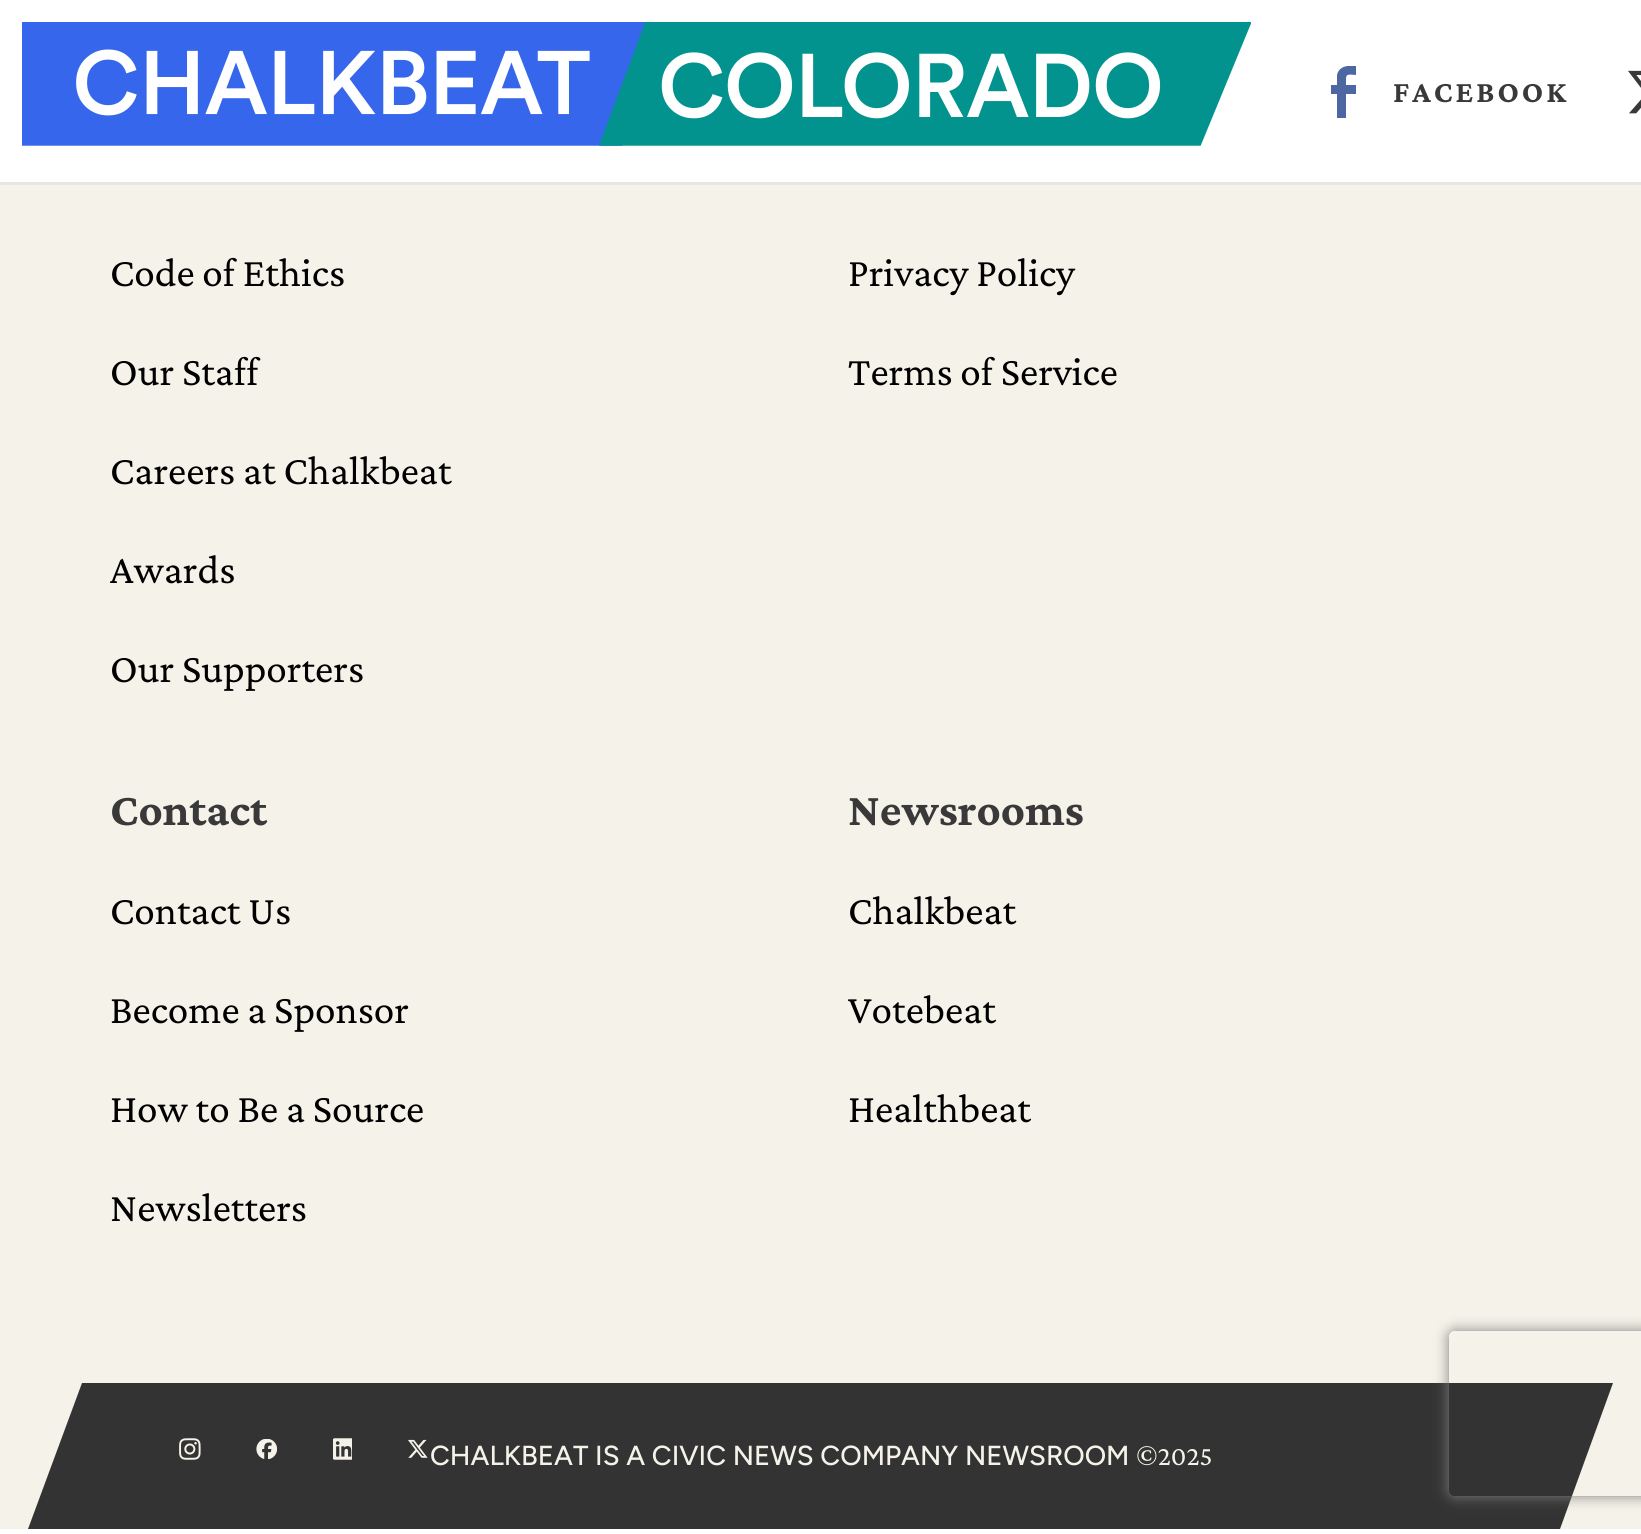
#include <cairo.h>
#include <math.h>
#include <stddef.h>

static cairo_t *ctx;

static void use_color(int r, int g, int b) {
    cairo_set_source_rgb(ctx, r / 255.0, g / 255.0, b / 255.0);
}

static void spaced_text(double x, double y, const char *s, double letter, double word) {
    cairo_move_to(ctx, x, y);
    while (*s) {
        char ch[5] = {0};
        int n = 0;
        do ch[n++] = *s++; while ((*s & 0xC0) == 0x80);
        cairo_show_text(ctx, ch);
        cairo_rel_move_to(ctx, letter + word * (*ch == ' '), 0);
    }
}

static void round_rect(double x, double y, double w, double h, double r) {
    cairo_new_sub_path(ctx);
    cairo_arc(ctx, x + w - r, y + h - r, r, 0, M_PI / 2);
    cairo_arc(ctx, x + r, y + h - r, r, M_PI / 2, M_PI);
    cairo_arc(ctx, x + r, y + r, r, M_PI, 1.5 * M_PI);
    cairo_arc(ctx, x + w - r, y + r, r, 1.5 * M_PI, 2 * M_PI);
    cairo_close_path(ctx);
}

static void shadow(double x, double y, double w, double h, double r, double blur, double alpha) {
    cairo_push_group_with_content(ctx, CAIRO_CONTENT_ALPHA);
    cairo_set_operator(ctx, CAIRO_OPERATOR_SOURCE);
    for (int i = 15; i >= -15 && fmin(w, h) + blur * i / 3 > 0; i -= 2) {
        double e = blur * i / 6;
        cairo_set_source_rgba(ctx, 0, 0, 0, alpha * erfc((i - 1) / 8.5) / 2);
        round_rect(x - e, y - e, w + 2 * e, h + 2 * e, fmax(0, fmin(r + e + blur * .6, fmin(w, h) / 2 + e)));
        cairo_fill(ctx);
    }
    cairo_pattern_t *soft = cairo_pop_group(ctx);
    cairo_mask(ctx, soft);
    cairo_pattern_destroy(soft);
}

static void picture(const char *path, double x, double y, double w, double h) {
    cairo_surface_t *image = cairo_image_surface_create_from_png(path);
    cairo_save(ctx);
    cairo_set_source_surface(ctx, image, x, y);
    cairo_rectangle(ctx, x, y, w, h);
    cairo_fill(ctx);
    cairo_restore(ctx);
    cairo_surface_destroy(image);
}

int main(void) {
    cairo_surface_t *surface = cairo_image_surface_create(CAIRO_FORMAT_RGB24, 1641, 1534);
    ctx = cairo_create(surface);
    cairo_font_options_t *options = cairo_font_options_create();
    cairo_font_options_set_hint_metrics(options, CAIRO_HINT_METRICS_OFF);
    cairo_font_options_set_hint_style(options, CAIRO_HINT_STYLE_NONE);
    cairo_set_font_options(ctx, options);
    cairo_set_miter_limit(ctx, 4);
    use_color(255, 255, 255);
    cairo_paint(ctx);
    use_color(230, 230, 230);
    cairo_rectangle(ctx, 0, 182, 1641, 3);
    cairo_fill(ctx);
    picture("img1.png", 22, 22, 1229, 124);
    cairo_save(ctx);
    cairo_rectangle(ctx, 1317, 66, 53, 52);
    cairo_clip(ctx);
    use_color(76, 103, 161);
    cairo_new_path(ctx);
    cairo_move_to(ctx, 1337, 118);
    cairo_line_to(ctx, 1337, 94);
    cairo_line_to(ctx, 1331, 94);
    cairo_line_to(ctx, 1331, 85);
    cairo_line_to(ctx, 1337, 85);
    cairo_line_to(ctx, 1337, 75);
    cairo_curve_to(ctx, 1339, 66, 1348, 65, 1356, 66);
    cairo_line_to(ctx, 1356, 75);
    cairo_curve_to(ctx, 1345, 74, 1346, 74, 1346, 85);
    cairo_line_to(ctx, 1356, 85);
    cairo_line_to(ctx, 1356, 94);
    cairo_line_to(ctx, 1346, 94);
    cairo_line_to(ctx, 1346, 118);
    cairo_close_path(ctx);
    cairo_fill(ctx);
    cairo_restore(ctx);
    cairo_select_font_face(ctx, "Crimson Pro", CAIRO_FONT_SLANT_NORMAL, CAIRO_FONT_WEIGHT_BOLD);
    cairo_set_font_size(ctx, 31);
    use_color(57, 57, 57);
    spaced_text(1393, 102, "FACEBOOK", 3, 0);
    picture("img2.png", 1628, 70, 13, 44);
    use_color(245, 242, 233);
    cairo_rectangle(ctx, 0, 185, 1641, 1344);
    cairo_fill(ctx);
    cairo_select_font_face(ctx, "Crimson Pro", CAIRO_FONT_SLANT_NORMAL, CAIRO_FONT_WEIGHT_NORMAL);
    cairo_set_font_size(ctx, 41.25);
    use_color(0, 0, 0);
    cairo_move_to(ctx, 110, 286);
    cairo_show_text(ctx, "Code of Ethics");
    cairo_move_to(ctx, 110, 385);
    cairo_show_text(ctx, "Our Staff");
    cairo_move_to(ctx, 110, 484);
    cairo_show_text(ctx, "Careers at Chalkbeat");
    cairo_move_to(ctx, 110, 583);
    cairo_show_text(ctx, "Awards");
    cairo_move_to(ctx, 110, 682);
    cairo_show_text(ctx, "Our Supporters");
    cairo_move_to(ctx, 848, 286);
    cairo_show_text(ctx, "Privacy Policy");
    cairo_move_to(ctx, 848, 385);
    cairo_show_text(ctx, "Terms of Service");
    cairo_select_font_face(ctx, "Crimson Pro", CAIRO_FONT_SLANT_NORMAL, CAIRO_FONT_WEIGHT_BOLD);
    cairo_set_font_size(ctx, 46.75);
    use_color(57, 57, 57);
    cairo_move_to(ctx, 110, 825);
    cairo_show_text(ctx, "Contact");
    cairo_select_font_face(ctx, "Crimson Pro", CAIRO_FONT_SLANT_NORMAL, CAIRO_FONT_WEIGHT_NORMAL);
    cairo_set_font_size(ctx, 41.25);
    use_color(0, 0, 0);
    cairo_move_to(ctx, 110, 924);
    cairo_show_text(ctx, "Contact Us");
    cairo_move_to(ctx, 110, 1023);
    cairo_show_text(ctx, "Become a Sponsor");
    cairo_move_to(ctx, 110, 1122);
    cairo_show_text(ctx, "How to Be a Source");
    cairo_move_to(ctx, 110, 1221);
    cairo_show_text(ctx, "Newsletters");
    cairo_select_font_face(ctx, "Crimson Pro", CAIRO_FONT_SLANT_NORMAL, CAIRO_FONT_WEIGHT_BOLD);
    cairo_set_font_size(ctx, 46.75);
    use_color(57, 57, 57);
    cairo_move_to(ctx, 848, 825);
    cairo_show_text(ctx, "Newsrooms");
    cairo_select_font_face(ctx, "Crimson Pro", CAIRO_FONT_SLANT_NORMAL, CAIRO_FONT_WEIGHT_NORMAL);
    cairo_set_font_size(ctx, 41.25);
    use_color(0, 0, 0);
    cairo_move_to(ctx, 848, 924);
    cairo_show_text(ctx, "Chalkbeat");
    cairo_move_to(ctx, 848, 1023);
    cairo_show_text(ctx, "Votebeat");
    cairo_move_to(ctx, 848, 1122);
    cairo_show_text(ctx, "Healthbeat");
    use_color(51, 51, 51);
    cairo_new_path(ctx);
    cairo_move_to(ctx, 82, 1383);
    cairo_line_to(ctx, 1613, 1383);
    cairo_line_to(ctx, 1560, 1529);
    cairo_line_to(ctx, 28, 1529);
    cairo_close_path(ctx);
    cairo_fill(ctx);
    picture("img3.png", 179, 1438, 22, 22);
    picture("img4.png", 256, 1439, 21, 20);
    picture("img5.png", 333, 1438, 19, 22);
    picture("img6.png", 408, 1439, 20, 19);
    cairo_select_font_face(ctx, "Figtree Medium", CAIRO_FONT_SLANT_NORMAL, CAIRO_FONT_WEIGHT_NORMAL);
    cairo_set_font_size(ctx, 27.5);
    use_color(245, 242, 233);
    cairo_move_to(ctx, 430, 1465);
    cairo_show_text(ctx, "CHALKBEAT IS A CIVIC NEWS COMPANY NEWSROOM");
    cairo_select_font_face(ctx, "Crimson Pro", CAIRO_FONT_SLANT_NORMAL, CAIRO_FONT_WEIGHT_NORMAL);
    cairo_move_to(ctx, 1136, 1465);
    cairo_show_text(ctx, "©2025");
    cairo_save(ctx);
    cairo_set_fill_rule(ctx, CAIRO_FILL_RULE_EVEN_ODD);
    cairo_new_path(ctx);
    cairo_move_to(ctx, 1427, 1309);
    cairo_line_to(ctx, 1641, 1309);
    cairo_line_to(ctx, 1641, 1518);
    cairo_line_to(ctx, 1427, 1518);
    cairo_close_path(ctx);
    cairo_move_to(ctx, 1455, 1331);
    cairo_line_to(ctx, 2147, 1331);
    cairo_curve_to(ctx, 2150.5, 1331, 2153, 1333.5, 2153, 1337);
    cairo_line_to(ctx, 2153, 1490);
    cairo_curve_to(ctx, 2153, 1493.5, 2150.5, 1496, 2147, 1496);
    cairo_line_to(ctx, 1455, 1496);
    cairo_curve_to(ctx, 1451.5, 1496, 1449, 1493.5, 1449, 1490);
    cairo_line_to(ctx, 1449, 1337);
    cairo_curve_to(ctx, 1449, 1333.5, 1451.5, 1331, 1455, 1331);
    cairo_close_path(ctx);
    cairo_clip(ctx);
    use_color(128, 128, 128);
    shadow(1449, 1331, 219, 165, 6, 7, 1);
    cairo_restore(ctx);
    cairo_surface_write_to_png(surface, "result.png");
    cairo_font_options_destroy(options);
    cairo_destroy(ctx);
    cairo_surface_destroy(surface);
    return 0;
}
